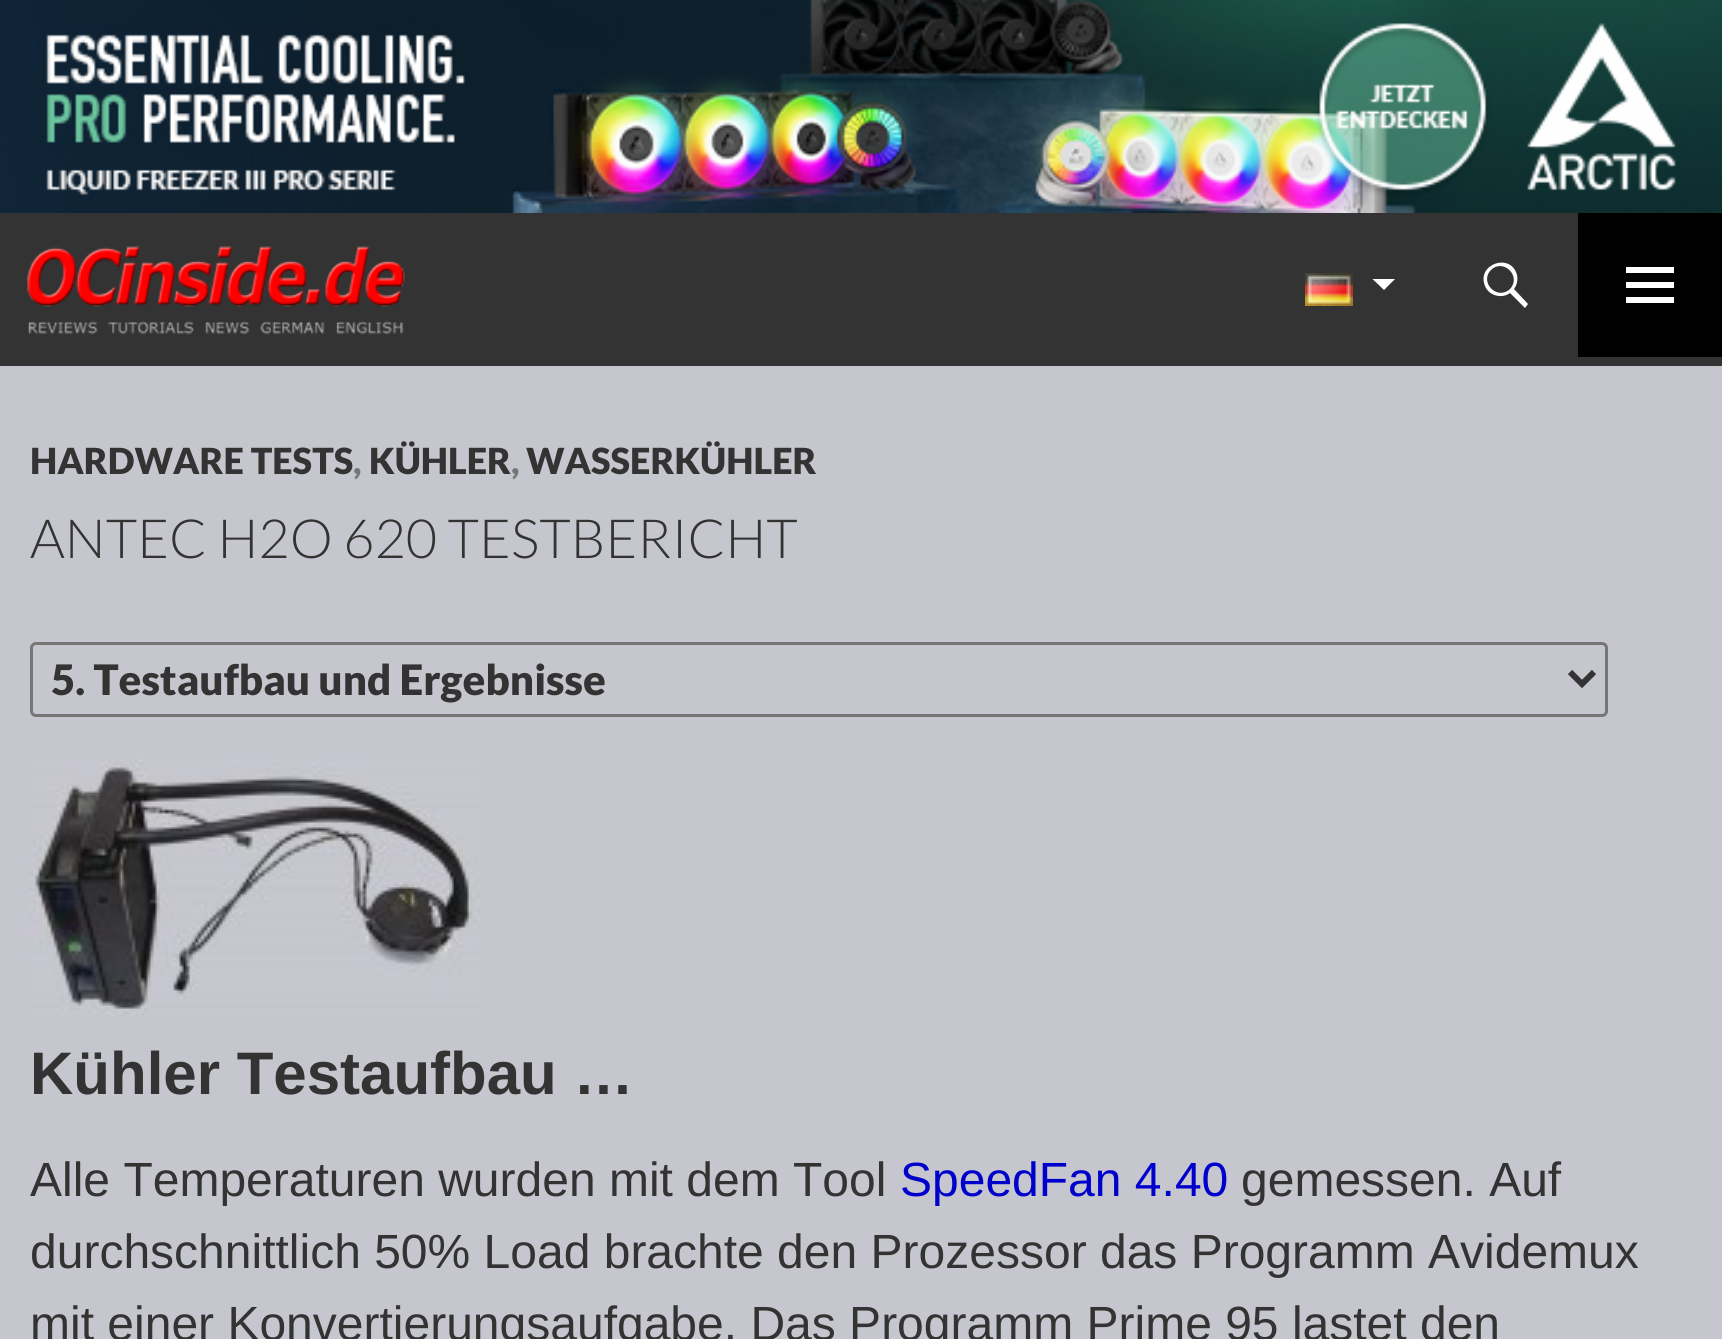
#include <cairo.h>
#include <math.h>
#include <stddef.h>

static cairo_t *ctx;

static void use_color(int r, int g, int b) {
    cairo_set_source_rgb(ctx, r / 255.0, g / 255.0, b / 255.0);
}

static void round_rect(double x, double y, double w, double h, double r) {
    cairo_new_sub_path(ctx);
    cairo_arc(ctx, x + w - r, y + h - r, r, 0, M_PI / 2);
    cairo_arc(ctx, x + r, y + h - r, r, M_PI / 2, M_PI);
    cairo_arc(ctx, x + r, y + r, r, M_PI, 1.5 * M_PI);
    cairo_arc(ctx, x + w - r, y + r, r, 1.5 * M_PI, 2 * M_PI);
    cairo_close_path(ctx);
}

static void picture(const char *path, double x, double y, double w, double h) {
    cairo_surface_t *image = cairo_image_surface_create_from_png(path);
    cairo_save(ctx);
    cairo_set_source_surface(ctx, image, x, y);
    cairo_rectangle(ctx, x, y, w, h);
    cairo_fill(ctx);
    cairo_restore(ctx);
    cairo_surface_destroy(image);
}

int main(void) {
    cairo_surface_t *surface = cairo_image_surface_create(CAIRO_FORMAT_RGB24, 1722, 1339);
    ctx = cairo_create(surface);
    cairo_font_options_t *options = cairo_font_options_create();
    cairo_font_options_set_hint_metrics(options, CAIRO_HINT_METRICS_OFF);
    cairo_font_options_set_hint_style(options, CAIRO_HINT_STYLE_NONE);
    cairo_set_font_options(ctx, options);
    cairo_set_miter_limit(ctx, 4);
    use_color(198, 199, 206);
    cairo_paint(ctx);
    picture("img1.png", 0, 0, 1722, 213);
    use_color(51, 51, 51);
    cairo_rectangle(ctx, 0, 213, 1578, 144);
    cairo_fill(ctx);
    picture("img2.png", 27, 246, 378, 89);
    picture("img3.png", 1305, 273, 48, 33);
    use_color(255, 255, 255);
    cairo_new_path(ctx);
    cairo_move_to(ctx, 1372.5, 279);
    cairo_line_to(ctx, 1384, 290);
    cairo_line_to(ctx, 1395, 279);
    cairo_close_path(ctx);
    cairo_fill(ctx);
    cairo_new_path(ctx);
    cairo_move_to(ctx, 1485, 286);
    cairo_curve_to(ctx, 1476, 264, 1511, 252, 1517, 275);
    cairo_curve_to(ctx, 1518, 280, 1517, 285, 1514, 289);
    cairo_line_to(ctx, 1528, 304);
    cairo_line_to(ctx, 1525, 308);
    cairo_line_to(ctx, 1510, 293);
    cairo_curve_to(ctx, 1502, 299, 1489, 296, 1485, 286);
    cairo_close_path(ctx);
    cairo_move_to(ctx, 1491, 270);
    cairo_curve_to(ctx, 1479, 282, 1497, 301, 1510, 289);
    cairo_curve_to(ctx, 1522, 276, 1503, 258, 1491, 270);
    cairo_close_path(ctx);
    cairo_fill(ctx);
    use_color(0, 0, 0);
    cairo_rectangle(ctx, 1578, 213, 144, 144);
    cairo_fill(ctx);
    use_color(255, 255, 255);
    cairo_new_path(ctx);
    cairo_move_to(ctx, 1626, 303);
    cairo_line_to(ctx, 1626, 297);
    cairo_line_to(ctx, 1674, 297);
    cairo_line_to(ctx, 1674, 303);
    cairo_close_path(ctx);
    cairo_move_to(ctx, 1626, 288);
    cairo_line_to(ctx, 1626, 282);
    cairo_line_to(ctx, 1674, 282);
    cairo_line_to(ctx, 1674, 288);
    cairo_close_path(ctx);
    cairo_move_to(ctx, 1626, 273);
    cairo_line_to(ctx, 1626, 267);
    cairo_line_to(ctx, 1674, 267);
    cairo_line_to(ctx, 1674, 273);
    cairo_close_path(ctx);
    cairo_fill(ctx);
    use_color(51, 51, 51);
    cairo_rectangle(ctx, 0, 357, 1722, 9);
    cairo_fill(ctx);
    cairo_select_font_face(ctx, "Lato Black", CAIRO_FONT_SLANT_NORMAL, CAIRO_FONT_WEIGHT_NORMAL);
    cairo_set_font_size(ctx, 36);
    cairo_move_to(ctx, 30, 474);
    cairo_show_text(ctx, "HARDWARE TESTS");
    use_color(118, 118, 118);
    cairo_move_to(ctx, 353, 474);
    cairo_show_text(ctx, ",");
    use_color(51, 51, 51);
    cairo_move_to(ctx, 369, 474);
    cairo_show_text(ctx, "KÜHLER");
    use_color(118, 118, 118);
    cairo_move_to(ctx, 511, 474);
    cairo_show_text(ctx, ",");
    use_color(51, 51, 51);
    cairo_move_to(ctx, 526, 474);
    cairo_show_text(ctx, "WASSERKÜHLER");
    cairo_select_font_face(ctx, "Lato Light", CAIRO_FONT_SLANT_NORMAL, CAIRO_FONT_WEIGHT_NORMAL);
    cairo_set_font_size(ctx, 54);
    cairo_move_to(ctx, 30, 558);
    cairo_show_text(ctx, "ANTEC H2O 620 TESTBERICHT");
    round_rect(31.5, 643.5, 1575, 72, 4.5);
    use_color(118, 118, 118);
    cairo_set_line_width(ctx, 3);
    cairo_stroke(ctx);
    cairo_new_path(ctx);
    cairo_move_to(ctx, 1570, 672);
    cairo_line_to(ctx, 1582, 684);
    cairo_line_to(ctx, 1594, 672);
    use_color(51, 51, 51);
    cairo_set_line_width(ctx, 6);
    cairo_stroke(ctx);
    cairo_select_font_face(ctx, "Lato Black", CAIRO_FONT_SLANT_NORMAL, CAIRO_FONT_WEIGHT_NORMAL);
    cairo_set_font_size(ctx, 42);
    cairo_move_to(ctx, 51, 695);
    cairo_show_text(ctx, "5. Testaufbau und Ergebnisse");
    picture("img4.png", 30, 759, 450, 258);
    cairo_select_font_face(ctx, "Liberation Sans", CAIRO_FONT_SLANT_NORMAL, CAIRO_FONT_WEIGHT_BOLD);
    cairo_set_font_size(ctx, 60);
    cairo_move_to(ctx, 30, 1094);
    cairo_show_text(ctx, "Kühler Testaufbau …");
    cairo_select_font_face(ctx, "Liberation Sans", CAIRO_FONT_SLANT_NORMAL, CAIRO_FONT_WEIGHT_NORMAL);
    cairo_set_font_size(ctx, 48);
    cairo_move_to(ctx, 30, 1196);
    cairo_show_text(ctx, "Alle Temperaturen wurden mit dem Tool");
    use_color(0, 0, 204);
    cairo_move_to(ctx, 900, 1196);
    cairo_show_text(ctx, "SpeedFan 4.40");
    use_color(51, 51, 51);
    cairo_move_to(ctx, 1241, 1196);
    cairo_show_text(ctx, "gemessen. Auf");
    cairo_move_to(ctx, 30, 1268);
    cairo_show_text(ctx, "durchschnittlich 50% Load brachte den Prozessor das Programm Avidemux");
    cairo_move_to(ctx, 30, 1340);
    cairo_show_text(ctx, "mit einer Konvertierungsaufgabe. Das Programm Prime 95 lastet den");
    cairo_surface_write_to_png(surface, "result.png");
    cairo_font_options_destroy(options);
    cairo_destroy(ctx);
    cairo_surface_destroy(surface);
    return 0;
}
